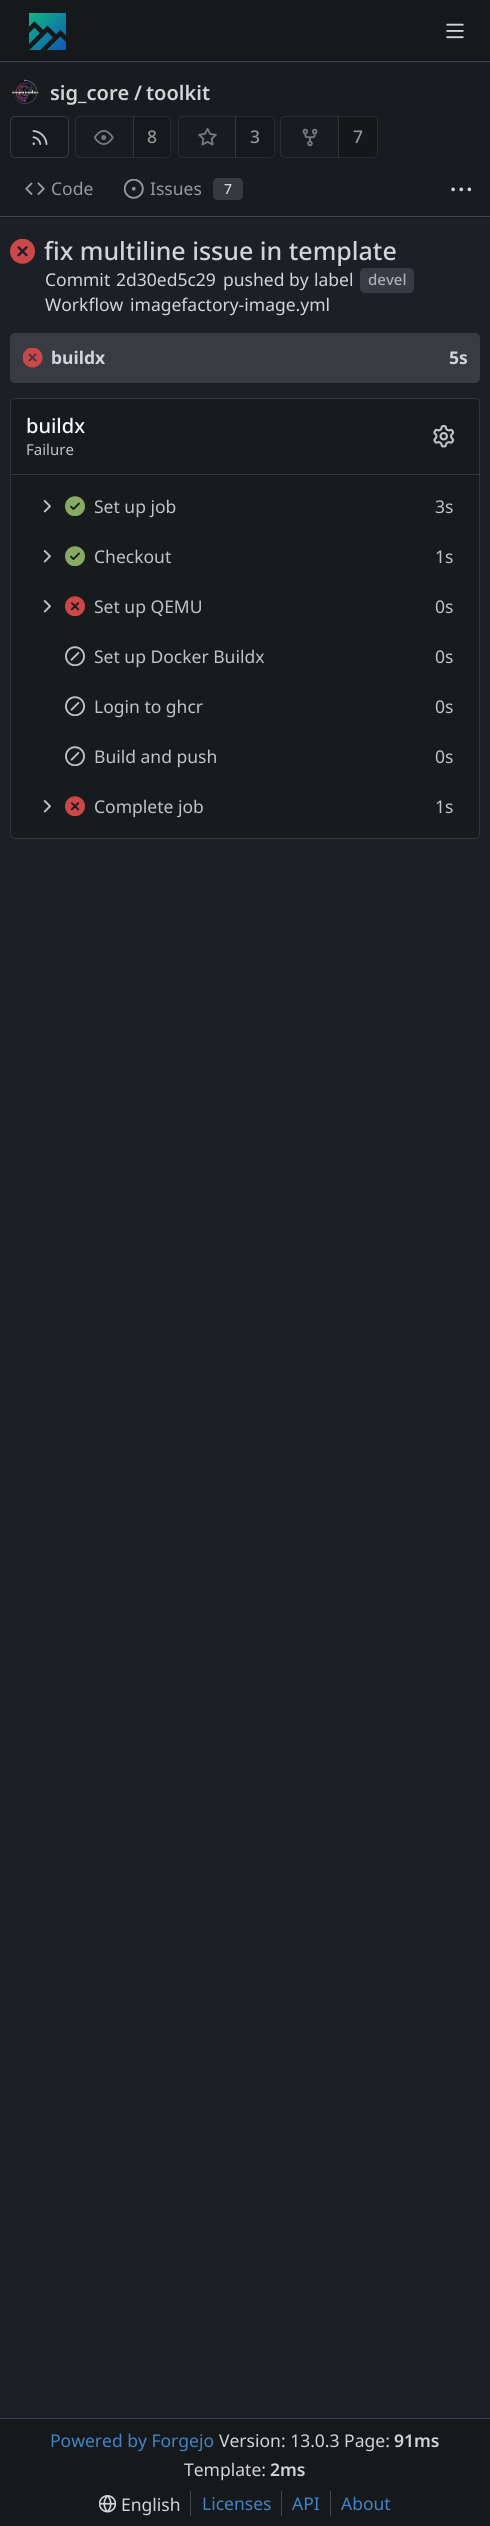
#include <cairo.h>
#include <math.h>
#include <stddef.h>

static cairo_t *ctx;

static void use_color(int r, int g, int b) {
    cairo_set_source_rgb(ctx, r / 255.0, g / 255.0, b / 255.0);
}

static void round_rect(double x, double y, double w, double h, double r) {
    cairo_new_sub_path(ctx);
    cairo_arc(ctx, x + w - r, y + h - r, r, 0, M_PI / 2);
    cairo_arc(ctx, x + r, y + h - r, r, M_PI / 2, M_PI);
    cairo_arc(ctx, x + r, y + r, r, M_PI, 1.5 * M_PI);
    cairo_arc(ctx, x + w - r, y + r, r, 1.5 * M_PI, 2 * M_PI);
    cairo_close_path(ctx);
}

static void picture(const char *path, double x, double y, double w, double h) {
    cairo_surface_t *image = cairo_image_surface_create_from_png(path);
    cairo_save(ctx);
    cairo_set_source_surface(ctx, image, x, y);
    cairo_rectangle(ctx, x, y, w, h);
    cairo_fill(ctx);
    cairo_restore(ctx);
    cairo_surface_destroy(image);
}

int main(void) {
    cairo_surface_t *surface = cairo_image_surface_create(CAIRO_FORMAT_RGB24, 490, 2526);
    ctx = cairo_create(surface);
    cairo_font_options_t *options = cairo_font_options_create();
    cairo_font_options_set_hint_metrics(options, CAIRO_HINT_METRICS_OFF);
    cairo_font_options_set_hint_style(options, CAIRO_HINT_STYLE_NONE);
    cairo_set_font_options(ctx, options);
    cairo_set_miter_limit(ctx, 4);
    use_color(28, 31, 37);
    cairo_paint(ctx);
    use_color(22, 25, 28);
    cairo_rectangle(ctx, 0, 0, 490, 61);
    cairo_fill(ctx);
    use_color(59, 68, 74);
    cairo_rectangle(ctx, 0, 61, 490, 1);
    cairo_fill(ctx);
    picture("img1.png", 29, 13, 37, 37);
    picture("img2.png", 446, 23, 18, 16);
    use_color(24, 28, 32);
    cairo_rectangle(ctx, 0, 63, 490, 155);
    cairo_fill(ctx);
    picture("img3.png", 11, 79, 28, 25);
    cairo_select_font_face(ctx, "Noto Sans SemiBold", CAIRO_FONT_SLANT_NORMAL, CAIRO_FONT_WEIGHT_NORMAL);
    cairo_set_font_size(ctx, 20);
    use_color(209, 213, 216);
    cairo_move_to(ctx, 50, 100);
    cairo_show_text(ctx, "sig_core");
    cairo_move_to(ctx, 134, 100);
    cairo_show_text(ctx, "/");
    cairo_move_to(ctx, 146, 100);
    cairo_show_text(ctx, "toolkit");
    use_color(21, 26, 30);
    round_rect(10.5, 116.5, 58, 41, 4.5);
    cairo_fill_preserve(ctx);
    use_color(54, 58, 65);
    cairo_set_line_width(ctx, 1);
    cairo_stroke(ctx);
    picture("img4.png", 32, 130, 16, 15);
    cairo_new_path(ctx);
    cairo_move_to(ctx, 80, 116.5);
    cairo_line_to(ctx, 133.5, 116.5);
    cairo_line_to(ctx, 133.5, 157.5);
    cairo_line_to(ctx, 80, 157.5);
    cairo_curve_to(ctx, 77.5, 157.5, 75.5, 155.5, 75.5, 153);
    cairo_line_to(ctx, 75.5, 121);
    cairo_curve_to(ctx, 75.5, 118.5, 77.5, 116.5, 80, 116.5);
    cairo_close_path(ctx);
    use_color(40, 45, 50);
    cairo_stroke(ctx);
    picture("img5.png", 94, 130, 20, 15);
    cairo_set_source_rgba(ctx, 0, 0, 0, 0.14);
    cairo_new_path(ctx);
    cairo_move_to(ctx, 133, 116);
    cairo_line_to(ctx, 166, 116);
    cairo_curve_to(ctx, 169, 116, 171, 118, 171, 121);
    cairo_line_to(ctx, 171, 153);
    cairo_curve_to(ctx, 171, 156, 169, 158, 166, 158);
    cairo_line_to(ctx, 133, 158);
    cairo_close_path(ctx);
    cairo_fill(ctx);
    cairo_new_path(ctx);
    cairo_move_to(ctx, 133.5, 116.5);
    cairo_line_to(ctx, 166, 116.5);
    cairo_curve_to(ctx, 168.5, 116.5, 170.5, 118.5, 170.5, 121);
    cairo_line_to(ctx, 170.5, 153);
    cairo_curve_to(ctx, 170.5, 155.5, 168.5, 157.5, 166, 157.5);
    cairo_line_to(ctx, 133.5, 157.5);
    cairo_close_path(ctx);
    cairo_set_source_rgba(ctx, 0.91, 0.91, 1, 0.09);
    cairo_stroke(ctx);
    cairo_select_font_face(ctx, "Noto Sans Medium", CAIRO_FONT_SLANT_NORMAL, CAIRO_FONT_WEIGHT_NORMAL);
    cairo_set_font_size(ctx, 17.5);
    use_color(147, 149, 151);
    cairo_move_to(ctx, 147, 143);
    cairo_show_text(ctx, "8");
    cairo_new_path(ctx);
    cairo_move_to(ctx, 183, 116.5);
    cairo_line_to(ctx, 235.5, 116.5);
    cairo_line_to(ctx, 235.5, 157.5);
    cairo_line_to(ctx, 183, 157.5);
    cairo_curve_to(ctx, 180.5, 157.5, 178.5, 155.5, 178.5, 153);
    cairo_line_to(ctx, 178.5, 121);
    cairo_curve_to(ctx, 178.5, 118.5, 180.5, 116.5, 183, 116.5);
    cairo_close_path(ctx);
    use_color(40, 45, 50);
    cairo_stroke(ctx);
    picture("img6.png", 198, 128, 19, 18);
    cairo_set_source_rgba(ctx, 0, 0, 0, 0.14);
    cairo_new_path(ctx);
    cairo_move_to(ctx, 235, 116);
    cairo_line_to(ctx, 270, 116);
    cairo_curve_to(ctx, 273, 116, 275, 118, 275, 121);
    cairo_line_to(ctx, 275, 153);
    cairo_curve_to(ctx, 275, 156, 273, 158, 270, 158);
    cairo_line_to(ctx, 235, 158);
    cairo_close_path(ctx);
    cairo_fill(ctx);
    cairo_new_path(ctx);
    cairo_move_to(ctx, 235.5, 116.5);
    cairo_line_to(ctx, 270, 116.5);
    cairo_curve_to(ctx, 272.5, 116.5, 274.5, 118.5, 274.5, 121);
    cairo_line_to(ctx, 274.5, 153);
    cairo_curve_to(ctx, 274.5, 155.5, 272.5, 157.5, 270, 157.5);
    cairo_line_to(ctx, 235.5, 157.5);
    cairo_close_path(ctx);
    cairo_set_source_rgba(ctx, 0.91, 0.91, 1, 0.09);
    cairo_stroke(ctx);
    use_color(147, 149, 151);
    cairo_move_to(ctx, 250, 143);
    cairo_show_text(ctx, "3");
    cairo_new_path(ctx);
    cairo_move_to(ctx, 285, 116.5);
    cairo_line_to(ctx, 338.5, 116.5);
    cairo_line_to(ctx, 338.5, 157.5);
    cairo_line_to(ctx, 285, 157.5);
    cairo_curve_to(ctx, 282.5, 157.5, 280.5, 155.5, 280.5, 153);
    cairo_line_to(ctx, 280.5, 121);
    cairo_curve_to(ctx, 280.5, 118.5, 282.5, 116.5, 285, 116.5);
    cairo_close_path(ctx);
    use_color(40, 45, 50);
    cairo_stroke(ctx);
    picture("img7.png", 302, 128, 16, 19);
    cairo_set_source_rgba(ctx, 0.043, 0.051, 0.055, 0.25);
    cairo_new_path(ctx);
    cairo_move_to(ctx, 338, 116);
    cairo_line_to(ctx, 373, 116);
    cairo_curve_to(ctx, 376, 116, 378, 118, 378, 121);
    cairo_line_to(ctx, 378, 153);
    cairo_curve_to(ctx, 378, 156, 376, 158, 373, 158);
    cairo_line_to(ctx, 338, 158);
    cairo_close_path(ctx);
    cairo_fill(ctx);
    cairo_new_path(ctx);
    cairo_move_to(ctx, 338.5, 116.5);
    cairo_line_to(ctx, 373, 116.5);
    cairo_curve_to(ctx, 375.5, 116.5, 377.5, 118.5, 377.5, 121);
    cairo_line_to(ctx, 377.5, 153);
    cairo_curve_to(ctx, 377.5, 155.5, 375.5, 157.5, 373, 157.5);
    cairo_line_to(ctx, 338.5, 157.5);
    cairo_close_path(ctx);
    cairo_set_source_rgba(ctx, 0.541, 0.549, 0.608, 0.16);
    cairo_stroke(ctx);
    use_color(147, 149, 151);
    cairo_move_to(ctx, 353, 143);
    cairo_show_text(ctx, "7");
    picture("img8.png", 25, 182, 20, 13);
    cairo_select_font_face(ctx, "Noto Sans", CAIRO_FONT_SLANT_NORMAL, CAIRO_FONT_WEIGHT_NORMAL);
    use_color(146, 155, 162);
    cairo_move_to(ctx, 51, 195);
    cairo_show_text(ctx, "Code");
    picture("img9.png", 124, 179, 20, 20);
    cairo_move_to(ctx, 150, 195);
    cairo_show_text(ctx, "Issues");
    use_color(51, 58, 64);
    round_rect(213, 178, 30, 22, 5);
    cairo_fill(ctx);
    cairo_select_font_face(ctx, "Noto Sans Medium", CAIRO_FONT_SLANT_NORMAL, CAIRO_FONT_WEIGHT_NORMAL);
    cairo_set_font_size(ctx, 14);
    use_color(209, 213, 216);
    cairo_move_to(ctx, 224, 194);
    cairo_show_text(ctx, "7");
    picture("img10.png", 451, 187, 20, 5);
    use_color(59, 68, 74);
    cairo_rectangle(ctx, 0, 216, 490, 1);
    cairo_fill(ctx);
    picture("img11.png", 10, 239, 25, 25);
    cairo_set_font_size(ctx, 25);
    use_color(209, 213, 216);
    cairo_move_to(ctx, 44, 260);
    cairo_show_text(ctx, "fix multiline issue in template");
    cairo_select_font_face(ctx, "Noto Sans", CAIRO_FONT_SLANT_NORMAL, CAIRO_FONT_WEIGHT_NORMAL);
    cairo_set_font_size(ctx, 17.5);
    cairo_move_to(ctx, 45, 286);
    cairo_show_text(ctx, "Commit");
    cairo_move_to(ctx, 116, 286);
    cairo_show_text(ctx, "2d30ed5c29");
    cairo_move_to(ctx, 223, 286);
    cairo_show_text(ctx, "pushed by");
    cairo_move_to(ctx, 314, 286);
    cairo_show_text(ctx, "label");
    use_color(54, 60, 68);
    round_rect(360, 268, 54, 25, 5);
    cairo_fill(ctx);
    cairo_select_font_face(ctx, "Noto Sans Medium", CAIRO_FONT_SLANT_NORMAL, CAIRO_FONT_WEIGHT_NORMAL);
    cairo_set_font_size(ctx, 15);
    use_color(170, 175, 179);
    cairo_move_to(ctx, 368, 285);
    cairo_show_text(ctx, "devel");
    cairo_select_font_face(ctx, "Noto Sans", CAIRO_FONT_SLANT_NORMAL, CAIRO_FONT_WEIGHT_NORMAL);
    cairo_set_font_size(ctx, 17.5);
    use_color(209, 213, 216);
    cairo_move_to(ctx, 45, 311);
    cairo_show_text(ctx, "Workflow");
    cairo_move_to(ctx, 130, 311);
    cairo_show_text(ctx, "imagefactory-image.yml");
    use_color(57, 59, 67);
    round_rect(10, 333, 470, 50, 5);
    cairo_fill(ctx);
    picture("img12.png", 23, 348, 20, 20);
    cairo_select_font_face(ctx, "Noto Sans", CAIRO_FONT_SLANT_NORMAL, CAIRO_FONT_WEIGHT_BOLD);
    use_color(209, 213, 216);
    cairo_move_to(ctx, 51, 364);
    cairo_show_text(ctx, "buildx");
    cairo_move_to(ctx, 449, 364);
    cairo_show_text(ctx, "5s");
    use_color(23, 27, 30);
    round_rect(10.5, 398.5, 469, 440, 4.5);
    cairo_fill_preserve(ctx);
    use_color(46, 53, 59);
    cairo_stroke(ctx);
    use_color(23, 27, 30);
    cairo_new_path(ctx);
    cairo_move_to(ctx, 16, 399);
    cairo_line_to(ctx, 474, 399);
    cairo_curve_to(ctx, 477, 399, 479, 401, 479, 404);
    cairo_line_to(ctx, 479, 474);
    cairo_line_to(ctx, 11, 474);
    cairo_line_to(ctx, 11, 404);
    cairo_curve_to(ctx, 11, 401, 13, 399, 16, 399);
    cairo_close_path(ctx);
    cairo_fill(ctx);
    cairo_select_font_face(ctx, "Noto Sans Medium", CAIRO_FONT_SLANT_NORMAL, CAIRO_FONT_WEIGHT_NORMAL);
    cairo_set_font_size(ctx, 20);
    use_color(248, 248, 249);
    cairo_move_to(ctx, 26, 433);
    cairo_show_text(ctx, "buildx");
    cairo_select_font_face(ctx, "Noto Sans", CAIRO_FONT_SLANT_NORMAL, CAIRO_FONT_WEIGHT_NORMAL);
    cairo_set_font_size(ctx, 15);
    use_color(190, 196, 200);
    cairo_move_to(ctx, 26, 455);
    cairo_show_text(ctx, "Failure");
    picture("img13.png", 433, 425, 22, 23);
    use_color(46, 53, 59);
    cairo_rectangle(ctx, 11, 474, 468, 1);
    cairo_fill(ctx);
    picture("img14.png", 43, 500, 8, 13);
    picture("img15.png", 65, 496, 20, 20);
    cairo_set_font_size(ctx, 17.5);
    use_color(190, 196, 200);
    cairo_move_to(ctx, 94, 513);
    cairo_show_text(ctx, "Set up job");
    cairo_move_to(ctx, 435, 513);
    cairo_show_text(ctx, "3s");
    picture("img14.png", 43, 550, 8, 13);
    picture("img15.png", 65, 546, 20, 20);
    cairo_move_to(ctx, 94, 563);
    cairo_show_text(ctx, "Checkout");
    cairo_move_to(ctx, 435, 563);
    cairo_show_text(ctx, "1s");
    picture("img14.png", 43, 600, 8, 13);
    picture("img16.png", 65, 596, 20, 20);
    cairo_move_to(ctx, 94, 613);
    cairo_show_text(ctx, "Set up QEMU");
    cairo_move_to(ctx, 435, 613);
    cairo_show_text(ctx, "0s");
    picture("img17.png", 65, 646, 20, 20);
    cairo_move_to(ctx, 94, 663);
    cairo_show_text(ctx, "Set up Docker Buildx");
    cairo_move_to(ctx, 435, 663);
    cairo_show_text(ctx, "0s");
    picture("img17.png", 65, 696, 20, 20);
    cairo_move_to(ctx, 94, 713);
    cairo_show_text(ctx, "Login to ghcr");
    cairo_move_to(ctx, 435, 713);
    cairo_show_text(ctx, "0s");
    picture("img17.png", 65, 746, 20, 20);
    cairo_move_to(ctx, 94, 763);
    cairo_show_text(ctx, "Build and push");
    cairo_move_to(ctx, 435, 763);
    cairo_show_text(ctx, "0s");
    picture("img14.png", 43, 800, 8, 13);
    picture("img16.png", 65, 796, 20, 20);
    cairo_move_to(ctx, 94, 813);
    cairo_show_text(ctx, "Complete job");
    cairo_move_to(ctx, 435, 813);
    cairo_show_text(ctx, "1s");
    use_color(22, 25, 28);
    cairo_rectangle(ctx, 0, 2419, 490, 107);
    cairo_fill(ctx);
    use_color(59, 68, 74);
    cairo_rectangle(ctx, 0, 2418, 490, 1);
    cairo_fill(ctx);
    use_color(65, 131, 196);
    cairo_move_to(ctx, 50, 2447);
    cairo_show_text(ctx, "Powered by Forgejo");
    use_color(209, 213, 216);
    cairo_move_to(ctx, 219, 2447);
    cairo_show_text(ctx, "Version: 13.0.3 Page:");
    cairo_select_font_face(ctx, "Noto Sans SemiBold", CAIRO_FONT_SLANT_NORMAL, CAIRO_FONT_WEIGHT_NORMAL);
    cairo_move_to(ctx, 394, 2447);
    cairo_show_text(ctx, "91ms");
    cairo_select_font_face(ctx, "Noto Sans", CAIRO_FONT_SLANT_NORMAL, CAIRO_FONT_WEIGHT_NORMAL);
    cairo_move_to(ctx, 184, 2476);
    cairo_show_text(ctx, "Template:");
    cairo_select_font_face(ctx, "Noto Sans SemiBold", CAIRO_FONT_SLANT_NORMAL, CAIRO_FONT_WEIGHT_NORMAL);
    cairo_move_to(ctx, 270, 2476);
    cairo_show_text(ctx, "2ms");
    picture("img18.png", 99, 2495, 17, 18);
    cairo_select_font_face(ctx, "Noto Sans", CAIRO_FONT_SLANT_NORMAL, CAIRO_FONT_WEIGHT_NORMAL);
    cairo_move_to(ctx, 121, 2511);
    cairo_show_text(ctx, "English");
    use_color(66, 75, 81);
    cairo_rectangle(ctx, 190, 2491, 1, 25);
    cairo_fill(ctx);
    use_color(65, 131, 196);
    cairo_move_to(ctx, 202, 2510);
    cairo_show_text(ctx, "Licenses");
    use_color(66, 75, 81);
    cairo_rectangle(ctx, 281, 2491, 1, 25);
    cairo_fill(ctx);
    use_color(65, 131, 196);
    cairo_move_to(ctx, 292, 2510);
    cairo_show_text(ctx, "API");
    use_color(66, 75, 81);
    cairo_rectangle(ctx, 330, 2491, 1, 25);
    cairo_fill(ctx);
    use_color(65, 131, 196);
    cairo_move_to(ctx, 341, 2510);
    cairo_show_text(ctx, "About");
    cairo_surface_write_to_png(surface, "result.png");
    cairo_font_options_destroy(options);
    cairo_destroy(ctx);
    cairo_surface_destroy(surface);
    return 0;
}
